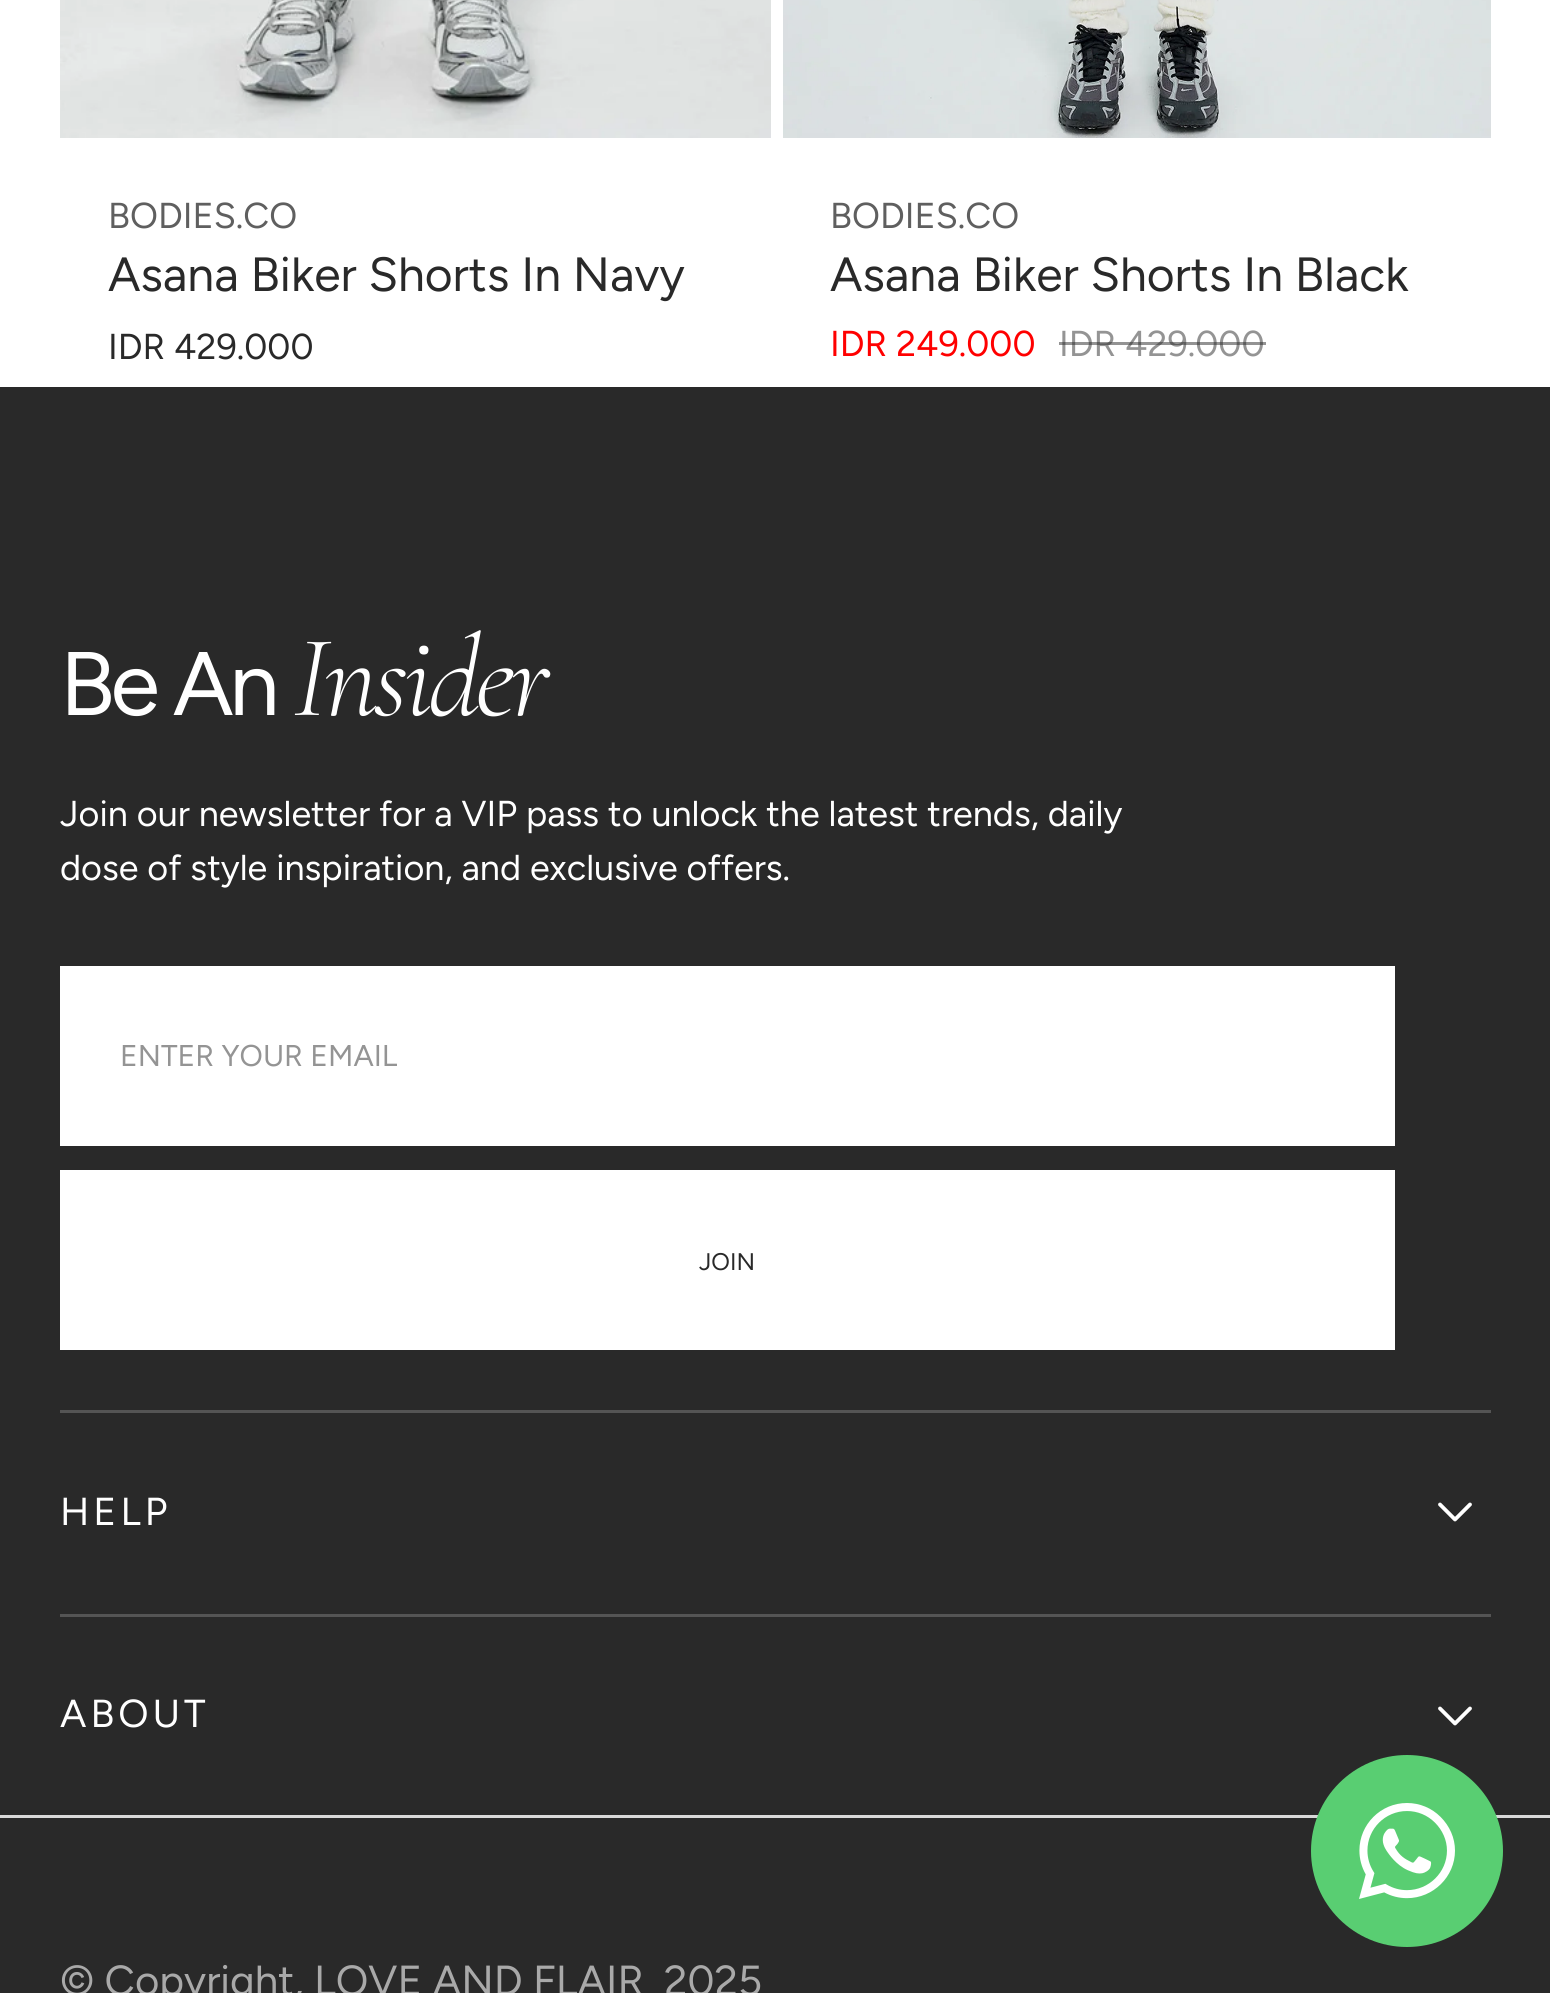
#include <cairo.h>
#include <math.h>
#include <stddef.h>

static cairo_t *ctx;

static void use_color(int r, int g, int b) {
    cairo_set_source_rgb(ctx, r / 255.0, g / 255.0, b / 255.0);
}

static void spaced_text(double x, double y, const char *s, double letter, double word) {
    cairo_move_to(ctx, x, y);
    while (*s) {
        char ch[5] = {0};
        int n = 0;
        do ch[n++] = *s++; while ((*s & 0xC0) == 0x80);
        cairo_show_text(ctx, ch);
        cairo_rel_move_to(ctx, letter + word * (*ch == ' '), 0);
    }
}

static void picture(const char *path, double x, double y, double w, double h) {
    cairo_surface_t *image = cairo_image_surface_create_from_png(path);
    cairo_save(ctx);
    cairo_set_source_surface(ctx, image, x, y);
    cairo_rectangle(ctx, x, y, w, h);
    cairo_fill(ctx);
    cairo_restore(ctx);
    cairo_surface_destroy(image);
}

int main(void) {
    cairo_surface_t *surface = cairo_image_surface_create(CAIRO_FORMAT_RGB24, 1550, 1993);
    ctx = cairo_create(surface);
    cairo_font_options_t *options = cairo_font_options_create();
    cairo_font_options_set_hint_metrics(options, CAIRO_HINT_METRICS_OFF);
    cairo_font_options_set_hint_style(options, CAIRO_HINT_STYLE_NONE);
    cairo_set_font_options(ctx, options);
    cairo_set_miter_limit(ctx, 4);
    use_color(255, 255, 255);
    cairo_paint(ctx);
    picture("img1.png", 60, 0, 711, 138);
    cairo_select_font_face(ctx, "Figtree", CAIRO_FONT_SLANT_NORMAL, CAIRO_FONT_WEIGHT_NORMAL);
    cairo_set_font_size(ctx, 36);
    use_color(95, 95, 95);
    cairo_move_to(ctx, 108, 228);
    cairo_show_text(ctx, "BODIES.CO");
    cairo_set_font_size(ctx, 48);
    use_color(41, 41, 41);
    cairo_move_to(ctx, 108, 291);
    cairo_show_text(ctx, "Asana Biker Shorts In Navy");
    cairo_set_font_size(ctx, 36);
    cairo_move_to(ctx, 108, 359);
    cairo_show_text(ctx, "IDR 429.000");
    picture("img2.png", 783, 0, 708, 138);
    use_color(95, 95, 95);
    cairo_move_to(ctx, 830, 228);
    cairo_show_text(ctx, "BODIES.CO");
    cairo_set_font_size(ctx, 48);
    use_color(41, 41, 41);
    cairo_move_to(ctx, 830, 291);
    cairo_show_text(ctx, "Asana Biker Shorts In Black");
    cairo_set_font_size(ctx, 36);
    use_color(255, 0, 0);
    cairo_move_to(ctx, 830, 356);
    cairo_show_text(ctx, "IDR 249.000");
    use_color(148, 148, 148);
    cairo_move_to(ctx, 1059, 356);
    cairo_show_text(ctx, "IDR 429.000");
    cairo_set_source_rgba(ctx, 0.161, 0.161, 0.161, 0.5);
    cairo_rectangle(ctx, 1059, 342, 207, 3);
    cairo_fill(ctx);
    use_color(41, 41, 41);
    cairo_rectangle(ctx, 0, 387, 1550, 1606);
    cairo_fill(ctx);
    cairo_set_font_size(ctx, 90);
    use_color(255, 255, 255);
    spaced_text(60, 715, "Be An", -4.5, 0);
    cairo_select_font_face(ctx, "Cormorant Light", CAIRO_FONT_SLANT_ITALIC, CAIRO_FONT_WEIGHT_NORMAL);
    cairo_set_font_size(ctx, 117);
    spaced_text(293, 715, "Insider", -4.5, 0);
    cairo_select_font_face(ctx, "Figtree", CAIRO_FONT_SLANT_NORMAL, CAIRO_FONT_WEIGHT_NORMAL);
    cairo_set_font_size(ctx, 36);
    cairo_move_to(ctx, 60, 826);
    cairo_show_text(ctx, "Join our newsletter for a VIP pass to unlock the latest trends, daily");
    cairo_move_to(ctx, 60, 880);
    cairo_show_text(ctx, "dose of style inspiration, and exclusive offers.");
    cairo_rectangle(ctx, 60, 966, 1335, 180);
    cairo_fill(ctx);
    cairo_set_font_size(ctx, 30);
    use_color(148, 148, 148);
    cairo_move_to(ctx, 120, 1066);
    cairo_show_text(ctx, "ENTER YOUR EMAIL");
    use_color(255, 255, 255);
    cairo_rectangle(ctx, 60, 1170, 1335, 180);
    cairo_fill(ctx);
    cairo_set_font_size(ctx, 24);
    use_color(41, 41, 41);
    cairo_move_to(ctx, 699, 1270);
    cairo_show_text(ctx, "JOIN");
    use_color(84, 84, 84);
    cairo_rectangle(ctx, 60, 1410, 1431, 3);
    cairo_fill(ctx);
    cairo_set_font_size(ctx, 39);
    use_color(255, 255, 255);
    spaced_text(60, 1525, "HELP", 4, 0);
    cairo_new_path(ctx);
    cairo_move_to(ctx, 1470, 1504.5);
    cairo_line_to(ctx, 1455, 1519.5);
    cairo_line_to(ctx, 1440, 1504.5);
    cairo_set_line_width(ctx, 3.8);
    cairo_set_line_cap(ctx, CAIRO_LINE_CAP_ROUND);
    cairo_set_line_join(ctx, CAIRO_LINE_JOIN_ROUND);
    cairo_stroke(ctx);
    use_color(84, 84, 84);
    cairo_rectangle(ctx, 60, 1614, 1431, 3);
    cairo_fill(ctx);
    use_color(255, 255, 255);
    spaced_text(60, 1727, "ABOUT", 4, 0);
    cairo_new_path(ctx);
    cairo_move_to(ctx, 1470, 1708.5);
    cairo_line_to(ctx, 1455, 1723.5);
    cairo_line_to(ctx, 1440, 1708.5);
    cairo_stroke(ctx);
    use_color(216, 216, 216);
    cairo_rectangle(ctx, 0, 1815, 1550, 3);
    cairo_fill(ctx);
    cairo_set_font_size(ctx, 42);
    use_color(169, 169, 169);
    cairo_move_to(ctx, 60, 1995);
    cairo_show_text(ctx, "© Copyright, LOVE AND FLAIR");
    cairo_move_to(ctx, 664, 1995);
    cairo_show_text(ctx, "2025");
    use_color(89, 206, 114);
    cairo_new_path(ctx);
    cairo_arc(ctx, 1407, 1851, 96, 0, 2 * M_PI);
    cairo_fill(ctx);
    picture("img3.png", 1359, 1803, 96, 96);
    cairo_surface_write_to_png(surface, "result.png");
    cairo_font_options_destroy(options);
    cairo_destroy(ctx);
    cairo_surface_destroy(surface);
    return 0;
}
